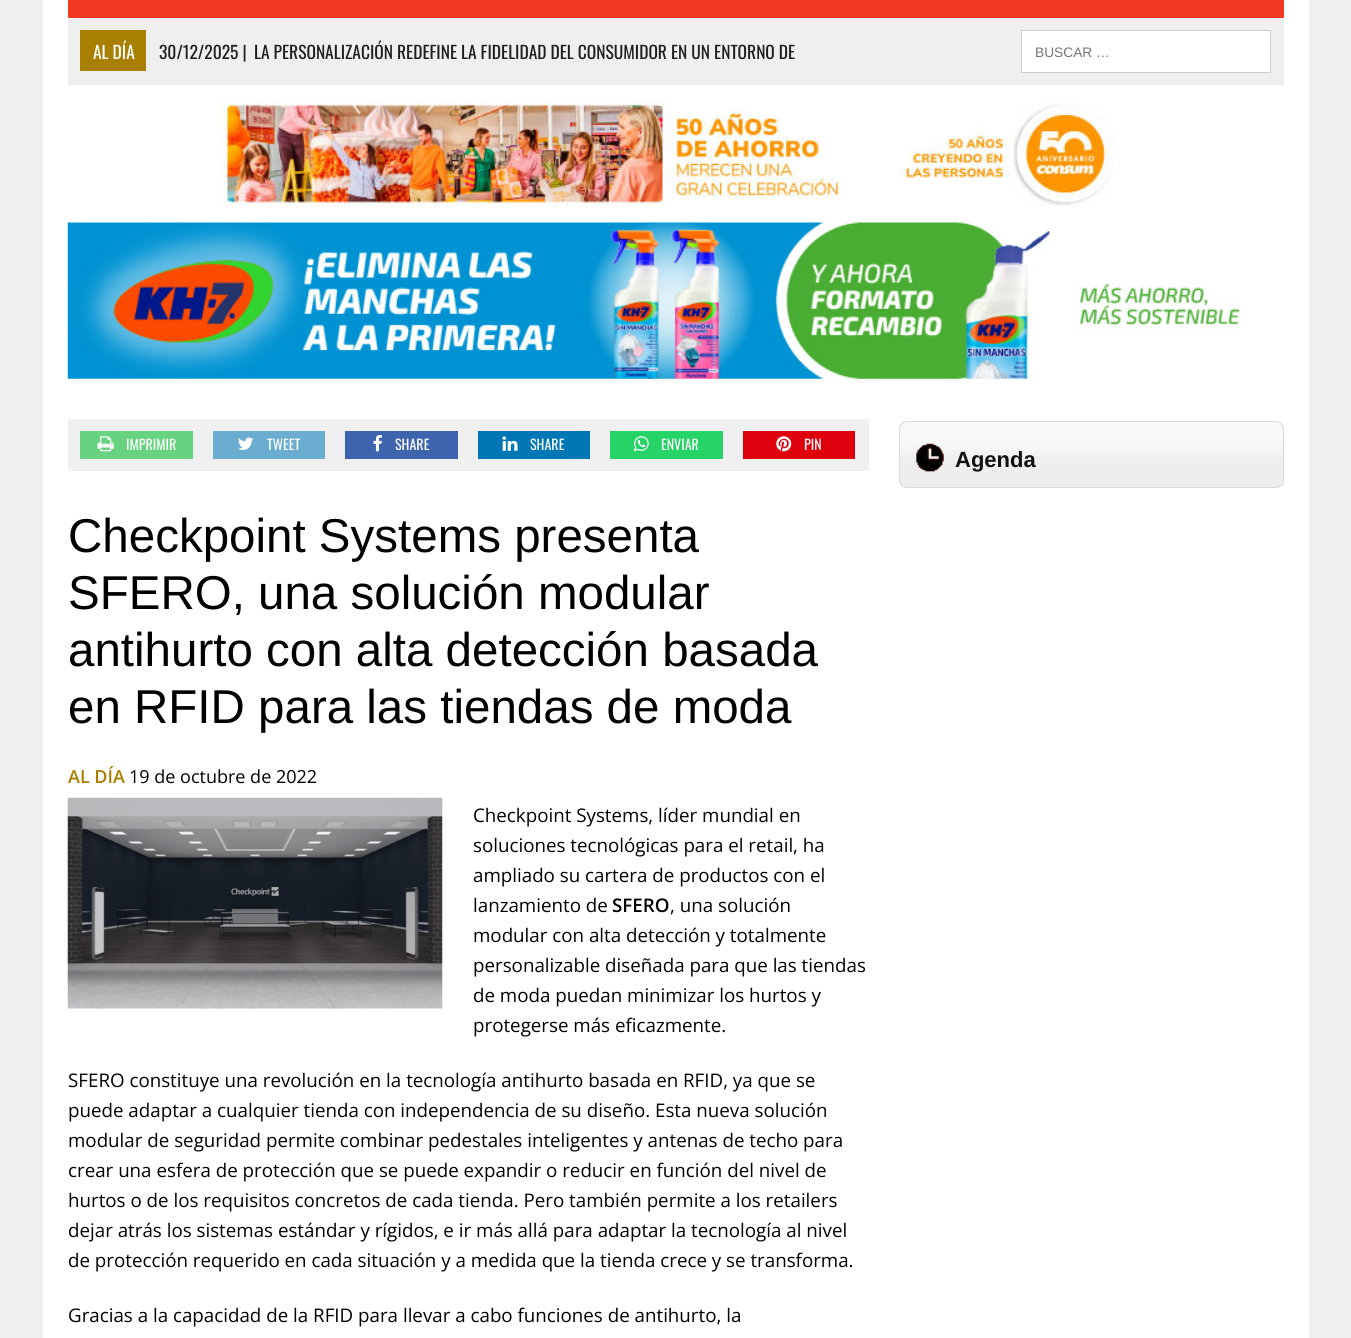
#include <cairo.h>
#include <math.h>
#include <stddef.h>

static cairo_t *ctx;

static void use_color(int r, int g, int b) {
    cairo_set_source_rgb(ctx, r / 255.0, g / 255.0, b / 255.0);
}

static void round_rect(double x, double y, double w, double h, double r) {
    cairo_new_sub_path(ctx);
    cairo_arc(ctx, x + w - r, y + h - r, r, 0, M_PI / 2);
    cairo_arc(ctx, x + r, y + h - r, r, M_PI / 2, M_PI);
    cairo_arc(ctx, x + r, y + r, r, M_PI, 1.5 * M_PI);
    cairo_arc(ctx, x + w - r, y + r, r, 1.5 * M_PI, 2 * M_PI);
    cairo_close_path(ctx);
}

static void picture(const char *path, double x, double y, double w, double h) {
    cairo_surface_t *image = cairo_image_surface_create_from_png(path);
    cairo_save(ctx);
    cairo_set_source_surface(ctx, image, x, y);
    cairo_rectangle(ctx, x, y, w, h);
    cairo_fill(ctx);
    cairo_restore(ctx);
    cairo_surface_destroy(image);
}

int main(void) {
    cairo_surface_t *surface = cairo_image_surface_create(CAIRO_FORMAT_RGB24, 1351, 1338);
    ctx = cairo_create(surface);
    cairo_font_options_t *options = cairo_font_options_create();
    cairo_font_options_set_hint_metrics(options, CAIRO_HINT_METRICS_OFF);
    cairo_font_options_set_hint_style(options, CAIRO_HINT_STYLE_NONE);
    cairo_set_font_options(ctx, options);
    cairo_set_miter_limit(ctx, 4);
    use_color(239, 239, 239);
    cairo_paint(ctx);
    use_color(255, 255, 255);
    cairo_rectangle(ctx, 43, 0, 1266, 1338);
    cairo_fill(ctx);
    use_color(241, 58, 33);
    cairo_rectangle(ctx, 68, 0, 1216, 18);
    cairo_fill(ctx);
    use_color(239, 239, 239);
    cairo_rectangle(ctx, 68, 18, 1216, 67);
    cairo_fill(ctx);
    use_color(168, 127, 1);
    cairo_rectangle(ctx, 80, 30, 66, 41);
    cairo_fill(ctx);
    cairo_select_font_face(ctx, "Oswald", CAIRO_FONT_SLANT_NORMAL, CAIRO_FONT_WEIGHT_NORMAL);
    cairo_set_font_size(ctx, 17.5);
    use_color(255, 255, 255);
    cairo_move_to(ctx, 93, 59);
    cairo_show_text(ctx, "AL DÍA");
    use_color(31, 30, 30);
    cairo_move_to(ctx, 159, 59);
    cairo_show_text(ctx, "30/12/2025 |");
    cairo_move_to(ctx, 254, 59);
    cairo_show_text(ctx, "LA PERSONALIZACIÓN REDEFINE LA FIDELIDAD DEL CONSUMIDOR EN UN ENTORNO DE");
    use_color(255, 255, 255);
    cairo_rectangle(ctx, 1021.5, 30.5, 249, 42);
    cairo_fill_preserve(ctx);
    use_color(205, 205, 205);
    cairo_set_line_width(ctx, 1);
    cairo_stroke(ctx);
    cairo_select_font_face(ctx, "Liberation Sans", CAIRO_FONT_SLANT_NORMAL, CAIRO_FONT_WEIGHT_NORMAL);
    cairo_set_font_size(ctx, 13.75);
    use_color(117, 117, 117);
    cairo_move_to(ctx, 1035, 57);
    cairo_show_text(ctx, "BUSCAR …");
    picture("img1.png", 220, 97, 894, 111);
    picture("img2.png", 67, 222, 1174, 157);
    use_color(240, 240, 240);
    cairo_rectangle(ctx, 68, 419, 801, 52);
    cairo_fill(ctx);
    use_color(103, 211, 128);
    cairo_rectangle(ctx, 80, 431, 113, 28);
    cairo_fill(ctx);
    picture("img3.png", 97, 436, 17, 16);
    cairo_select_font_face(ctx, "Oswald", CAIRO_FONT_SLANT_NORMAL, CAIRO_FONT_WEIGHT_NORMAL);
    cairo_set_font_size(ctx, 14);
    use_color(255, 255, 255);
    cairo_move_to(ctx, 126, 450);
    cairo_show_text(ctx, "IMPRIMIR");
    use_color(106, 173, 209);
    cairo_rectangle(ctx, 213, 431, 112, 28);
    cairo_fill(ctx);
    picture("img4.png", 238, 437, 16, 13);
    use_color(255, 255, 255);
    cairo_move_to(ctx, 267, 450);
    cairo_show_text(ctx, "TWEET");
    use_color(62, 100, 173);
    cairo_rectangle(ctx, 345, 431, 113, 28);
    cairo_fill(ctx);
    picture("img5.png", 373, 435, 9, 17);
    use_color(255, 255, 255);
    cairo_move_to(ctx, 395, 450);
    cairo_show_text(ctx, "SHARE");
    use_color(0, 119, 181);
    cairo_rectangle(ctx, 478, 431, 112, 28);
    cairo_fill(ctx);
    picture("img6.png", 502, 436, 16, 15);
    use_color(255, 255, 255);
    cairo_move_to(ctx, 530, 450);
    cairo_show_text(ctx, "SHARE");
    use_color(37, 211, 102);
    cairo_rectangle(ctx, 610, 431, 113, 28);
    cairo_fill(ctx);
    picture("img7.png", 633, 436, 16, 16);
    use_color(255, 255, 255);
    cairo_move_to(ctx, 661, 450);
    cairo_show_text(ctx, "ENVIAR");
    use_color(222, 1, 13);
    cairo_rectangle(ctx, 743, 431, 112, 28);
    cairo_fill(ctx);
    picture("img8.png", 776, 436, 16, 16);
    use_color(255, 255, 255);
    cairo_move_to(ctx, 804, 450);
    cairo_show_text(ctx, "PIN");
    cairo_select_font_face(ctx, "Liberation Sans", CAIRO_FONT_SLANT_NORMAL, CAIRO_FONT_WEIGHT_NORMAL);
    cairo_set_font_size(ctx, 47.5);
    use_color(0, 0, 0);
    cairo_move_to(ctx, 68, 552);
    cairo_show_text(ctx, "Checkpoint Systems presenta");
    cairo_move_to(ctx, 68, 609);
    cairo_show_text(ctx, "SFERO, una solución modular");
    cairo_move_to(ctx, 68, 666);
    cairo_show_text(ctx, "antihurto con alta detección basada");
    cairo_move_to(ctx, 68, 723);
    cairo_show_text(ctx, "en RFID para las tiendas de moda");
    cairo_select_font_face(ctx, "Open Sans SemiBold", CAIRO_FONT_SLANT_NORMAL, CAIRO_FONT_WEIGHT_NORMAL);
    cairo_set_font_size(ctx, 18);
    use_color(168, 127, 1);
    cairo_move_to(ctx, 68, 783);
    cairo_show_text(ctx, "AL DÍA");
    cairo_select_font_face(ctx, "Open Sans", CAIRO_FONT_SLANT_NORMAL, CAIRO_FONT_WEIGHT_NORMAL);
    use_color(0, 0, 0);
    cairo_move_to(ctx, 129, 783);
    cairo_show_text(ctx, "19 de octubre de 2022");
    picture("img9.png", 67, 797, 376, 212);
    cairo_set_font_size(ctx, 18.75);
    cairo_move_to(ctx, 473, 822);
    cairo_show_text(ctx, "Checkpoint Systems, líder mundial en");
    cairo_move_to(ctx, 473, 852);
    cairo_show_text(ctx, "soluciones tecnológicas para el retail, ha");
    cairo_move_to(ctx, 473, 882);
    cairo_show_text(ctx, "ampliado su cartera de productos con el");
    cairo_move_to(ctx, 473, 912);
    cairo_show_text(ctx, "lanzamiento de");
    cairo_select_font_face(ctx, "Open Sans SemiBold", CAIRO_FONT_SLANT_NORMAL, CAIRO_FONT_WEIGHT_NORMAL);
    cairo_move_to(ctx, 612, 912);
    cairo_show_text(ctx, "SFERO");
    cairo_select_font_face(ctx, "Open Sans", CAIRO_FONT_SLANT_NORMAL, CAIRO_FONT_WEIGHT_NORMAL);
    cairo_move_to(ctx, 670, 912);
    cairo_show_text(ctx, ", una solución");
    cairo_move_to(ctx, 473, 942);
    cairo_show_text(ctx, "modular con alta detección y totalmente");
    cairo_move_to(ctx, 473, 972);
    cairo_show_text(ctx, "personalizable diseñada para que las tiendas");
    cairo_move_to(ctx, 473, 1002);
    cairo_show_text(ctx, "de moda puedan minimizar los hurtos y");
    cairo_move_to(ctx, 473, 1032);
    cairo_show_text(ctx, "protegerse más eficazmente.");
    cairo_move_to(ctx, 68, 1087);
    cairo_show_text(ctx, "SFERO constituye una revolución en la tecnología antihurto basada en RFID, ya que se");
    cairo_move_to(ctx, 68, 1117);
    cairo_show_text(ctx, "puede adaptar a cualquier tienda con independencia de su diseño. Esta nueva solución");
    cairo_move_to(ctx, 68, 1147);
    cairo_show_text(ctx, "modular de seguridad permite combinar pedestales inteligentes y antenas de techo para");
    cairo_move_to(ctx, 68, 1177);
    cairo_show_text(ctx, "crear una esfera de protección que se puede expandir o reducir en función del nivel de");
    cairo_move_to(ctx, 68, 1207);
    cairo_show_text(ctx, "hurtos o de los requisitos concretos de cada tienda. Pero también permite a los retailers");
    cairo_move_to(ctx, 68, 1237);
    cairo_show_text(ctx, "dejar atrás los sistemas estándar y rígidos, e ir más allá para adaptar la tecnología al nivel");
    cairo_move_to(ctx, 68, 1267);
    cairo_show_text(ctx, "de protección requerido en cada situación y a medida que la tienda crece y se transforma.");
    cairo_move_to(ctx, 68, 1322);
    cairo_show_text(ctx, "Gracias a la capacidad de la RFID para llevar a cabo funciones de antihurto, la");
    use_color(238, 238, 238);
    round_rect(899, 421, 385, 67, 8);
    cairo_fill(ctx);
    picture("img10.png", 899, 421, 385, 64);
    round_rect(899.5, 421.5, 384, 66, 7.5);
    use_color(216, 220, 223);
    cairo_stroke(ctx);
    picture("img11.png", 916, 443, 28, 29);
    cairo_select_font_face(ctx, "Liberation Sans", CAIRO_FONT_SLANT_NORMAL, CAIRO_FONT_WEIGHT_BOLD);
    cairo_set_font_size(ctx, 22);
    use_color(17, 17, 17);
    cairo_move_to(ctx, 955, 467);
    cairo_show_text(ctx, "Agenda");
    cairo_surface_write_to_png(surface, "result.png");
    cairo_font_options_destroy(options);
    cairo_destroy(ctx);
    cairo_surface_destroy(surface);
    return 0;
}
